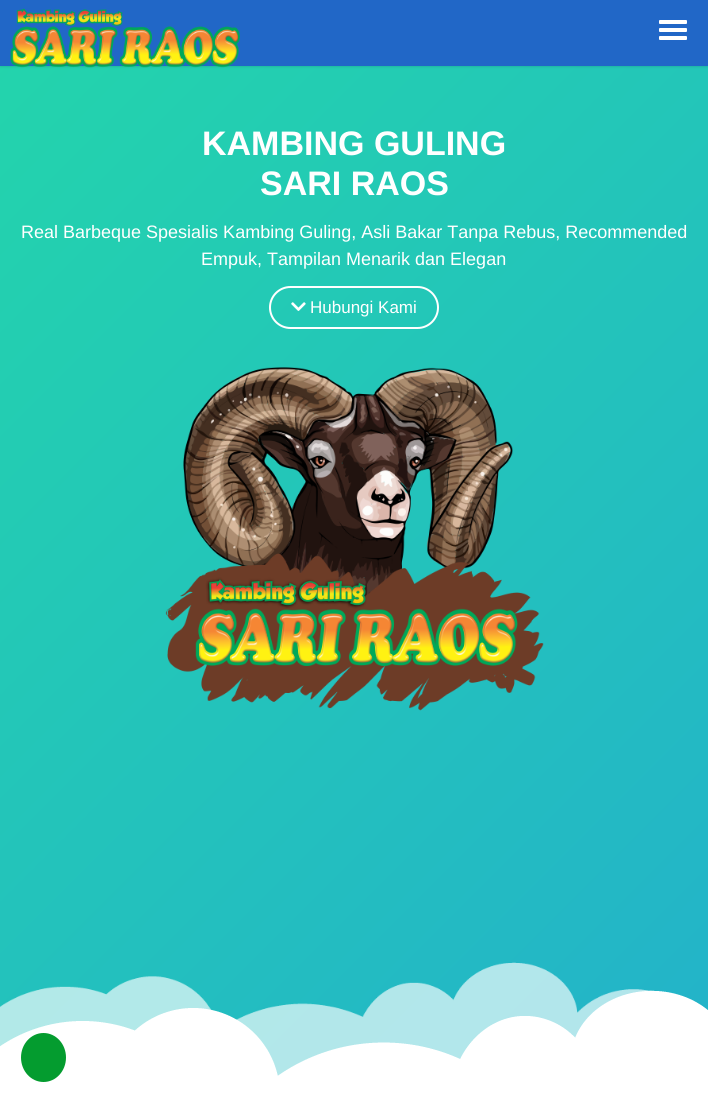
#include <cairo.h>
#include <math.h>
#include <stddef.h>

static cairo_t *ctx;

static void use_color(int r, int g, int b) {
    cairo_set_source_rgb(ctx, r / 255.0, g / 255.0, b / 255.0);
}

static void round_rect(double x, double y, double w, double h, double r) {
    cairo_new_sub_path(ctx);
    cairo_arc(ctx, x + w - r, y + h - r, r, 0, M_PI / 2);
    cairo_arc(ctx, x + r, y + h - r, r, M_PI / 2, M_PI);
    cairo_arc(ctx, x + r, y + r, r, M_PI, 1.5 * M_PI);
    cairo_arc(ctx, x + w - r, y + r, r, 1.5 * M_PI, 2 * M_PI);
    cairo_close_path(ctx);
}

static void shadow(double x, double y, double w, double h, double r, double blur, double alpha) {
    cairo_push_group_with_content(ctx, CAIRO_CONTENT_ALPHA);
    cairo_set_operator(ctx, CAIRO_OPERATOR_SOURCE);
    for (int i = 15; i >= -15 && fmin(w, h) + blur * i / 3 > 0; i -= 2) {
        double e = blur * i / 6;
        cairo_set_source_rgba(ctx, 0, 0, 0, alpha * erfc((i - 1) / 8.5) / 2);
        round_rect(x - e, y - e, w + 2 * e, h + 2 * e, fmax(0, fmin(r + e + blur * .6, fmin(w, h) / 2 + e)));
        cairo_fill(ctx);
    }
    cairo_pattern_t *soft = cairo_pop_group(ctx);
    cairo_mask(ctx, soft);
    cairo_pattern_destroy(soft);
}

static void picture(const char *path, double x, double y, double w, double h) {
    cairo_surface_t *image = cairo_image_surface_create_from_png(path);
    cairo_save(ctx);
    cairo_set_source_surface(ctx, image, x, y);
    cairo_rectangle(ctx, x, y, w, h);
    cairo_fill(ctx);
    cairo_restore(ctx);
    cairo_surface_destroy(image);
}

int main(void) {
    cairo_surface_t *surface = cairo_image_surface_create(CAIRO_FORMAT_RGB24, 708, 1102);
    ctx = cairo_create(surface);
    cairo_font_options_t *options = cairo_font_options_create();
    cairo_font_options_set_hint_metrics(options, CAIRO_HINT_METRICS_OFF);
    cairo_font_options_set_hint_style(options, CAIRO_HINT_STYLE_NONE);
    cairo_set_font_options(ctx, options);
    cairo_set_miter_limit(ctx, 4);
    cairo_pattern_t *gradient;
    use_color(255, 255, 255);
    cairo_paint(ctx);
    gradient = cairo_pattern_create_linear(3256, 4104, -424, 424);
    cairo_pattern_add_color_stop_rgba(gradient, 0, 0.933, 0.467, 0.322, 1);
    cairo_pattern_add_color_stop_rgba(gradient, 0.33, 0.906, 0.235, 0.494, 1);
    cairo_pattern_add_color_stop_rgba(gradient, 0.67, 0.137, 0.651, 0.835, 1);
    cairo_pattern_add_color_stop_rgba(gradient, 1, 0.137, 0.835, 0.671, 1);
    cairo_set_source(ctx, gradient);
    cairo_pattern_destroy(gradient);
    cairo_rectangle(ctx, 0, 66, 708, 1010);
    cairo_fill(ctx);
    use_color(0, 0, 0);
    shadow(0, 0, 708, 66, 0, 1.5, 0.2);
    use_color(33, 103, 199);
    cairo_rectangle(ctx, 0, 0, 708, 66);
    cairo_fill(ctx);
    picture("img1.png", 10, 8, 230, 60);
    use_color(255, 255, 255);
    round_rect(659, 20, 28, 4, 1);
    cairo_fill(ctx);
    round_rect(659, 28, 28, 4, 1);
    cairo_fill(ctx);
    round_rect(659, 36, 28, 4, 1);
    cairo_fill(ctx);
    cairo_select_font_face(ctx, "Liberation Sans", CAIRO_FONT_SLANT_NORMAL, CAIRO_FONT_WEIGHT_BOLD);
    cairo_set_font_size(ctx, 34);
    cairo_move_to(ctx, 202, 155);
    cairo_show_text(ctx, "KAMBING GULING");
    cairo_move_to(ctx, 260, 195);
    cairo_show_text(ctx, "SARI RAOS");
    cairo_select_font_face(ctx, "Liberation Sans", CAIRO_FONT_SLANT_NORMAL, CAIRO_FONT_WEIGHT_NORMAL);
    cairo_set_font_size(ctx, 18);
    cairo_move_to(ctx, 21, 238);
    cairo_show_text(ctx, "Real Barbeque Spesialis Kambing Guling, Asli Bakar Tanpa Rebus, Recommended");
    cairo_move_to(ctx, 201, 265);
    cairo_show_text(ctx, "Empuk, Tampilan Menarik dan Elegan");
    round_rect(270, 287, 168, 41, 20.5);
    cairo_stroke(ctx);
    picture("img2.png", 291, 302, 15, 9);
    cairo_set_font_size(ctx, 17);
    cairo_move_to(ctx, 310, 313);
    cairo_show_text(ctx, "Hubungi Kami");
    picture("img3.png", 165, 367, 379, 344);
    picture("img6.png", 0, 990, 708, 112);
    picture("img4.png", 0, 962, 652, 114);
    picture("img5.png", 0, 962, 652, 114);
    use_color(4, 156, 47);
    cairo_new_path(ctx);
    cairo_move_to(ctx, 43.5, 1033);
    cairo_curve_to(ctx, 56, 1033, 66, 1044, 66, 1057.5);
    cairo_curve_to(ctx, 66, 1071, 56, 1082, 43.5, 1082);
    cairo_curve_to(ctx, 31, 1082, 21, 1071, 21, 1057.5);
    cairo_curve_to(ctx, 21, 1044, 31, 1033, 43.5, 1033);
    cairo_close_path(ctx);
    cairo_fill(ctx);
    cairo_surface_write_to_png(surface, "result.png");
    cairo_font_options_destroy(options);
    cairo_destroy(ctx);
    cairo_surface_destroy(surface);
    return 0;
}
